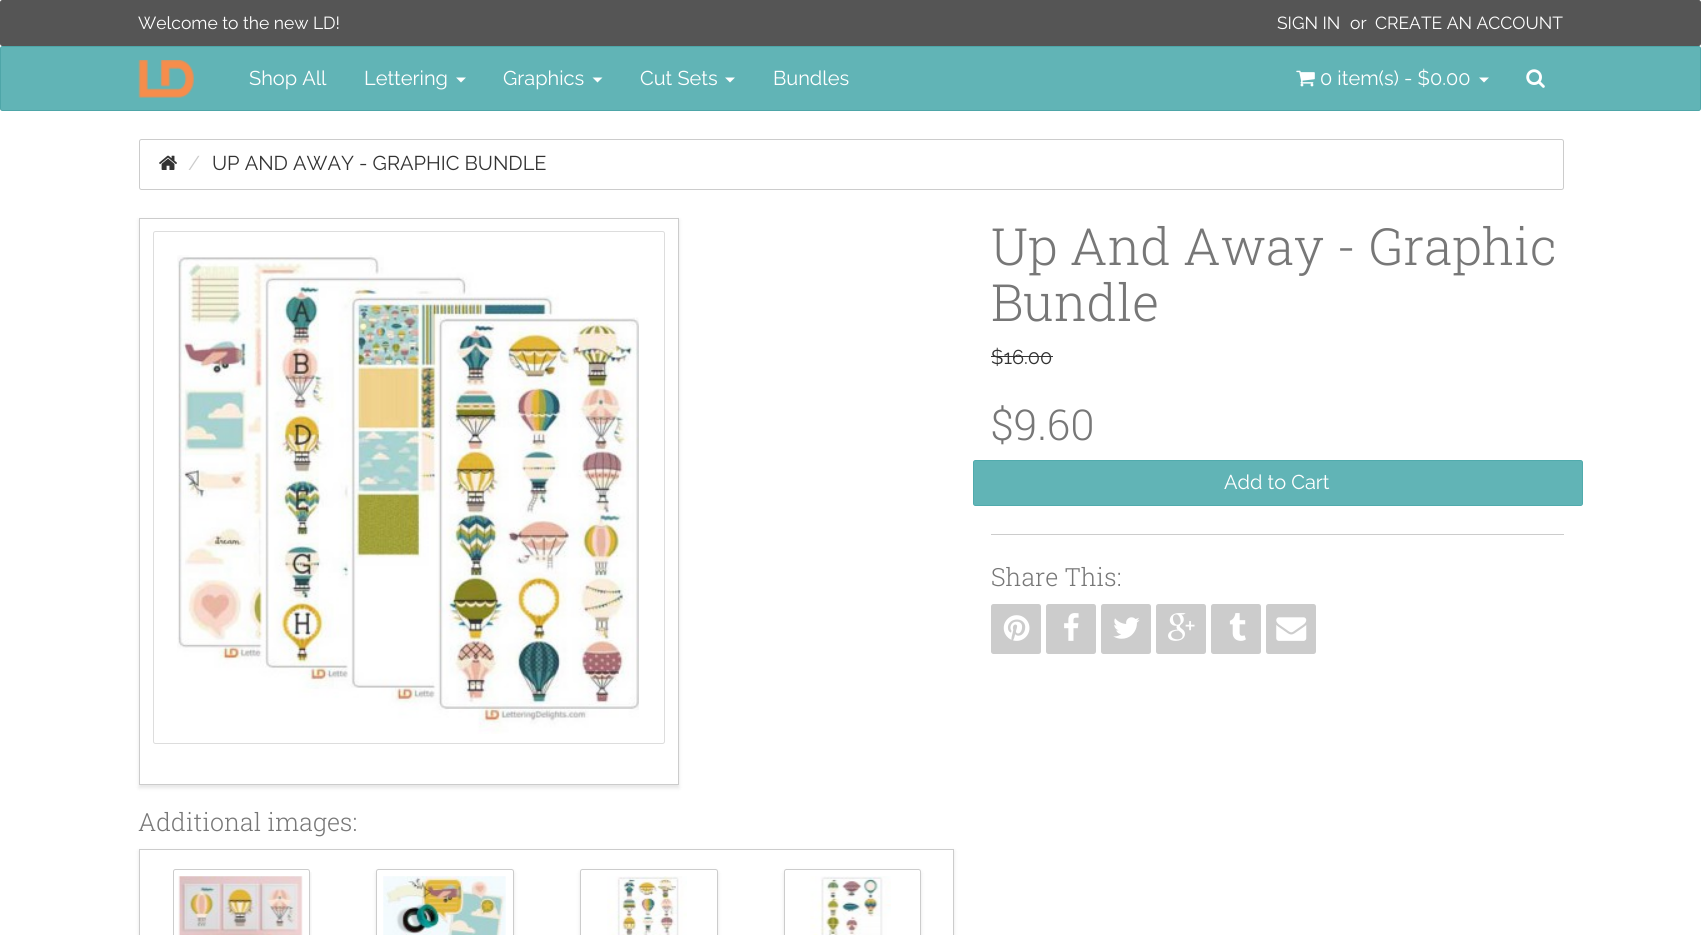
#include <cairo.h>
#include <math.h>
#include <stddef.h>

static cairo_t *ctx;

static void use_color(int r, int g, int b) {
    cairo_set_source_rgb(ctx, r / 255.0, g / 255.0, b / 255.0);
}

static void round_rect(double x, double y, double w, double h, double r) {
    cairo_new_sub_path(ctx);
    cairo_arc(ctx, x + w - r, y + h - r, r, 0, M_PI / 2);
    cairo_arc(ctx, x + r, y + h - r, r, M_PI / 2, M_PI);
    cairo_arc(ctx, x + r, y + r, r, M_PI, 1.5 * M_PI);
    cairo_arc(ctx, x + w - r, y + r, r, 1.5 * M_PI, 2 * M_PI);
    cairo_close_path(ctx);
}

static void shadow(double x, double y, double w, double h, double r, double blur, double alpha) {
    cairo_push_group_with_content(ctx, CAIRO_CONTENT_ALPHA);
    cairo_set_operator(ctx, CAIRO_OPERATOR_SOURCE);
    for (int i = 15; i >= -15 && fmin(w, h) + blur * i / 3 > 0; i -= 2) {
        double e = blur * i / 6;
        cairo_set_source_rgba(ctx, 0, 0, 0, alpha * erfc((i - 1) / 8.5) / 2);
        round_rect(x - e, y - e, w + 2 * e, h + 2 * e, fmax(0, fmin(r + e + blur * .6, fmin(w, h) / 2 + e)));
        cairo_fill(ctx);
    }
    cairo_pattern_t *soft = cairo_pop_group(ctx);
    cairo_mask(ctx, soft);
    cairo_pattern_destroy(soft);
}

static void picture(const char *path, double x, double y, double w, double h) {
    cairo_surface_t *image = cairo_image_surface_create_from_png(path);
    cairo_save(ctx);
    cairo_set_source_surface(ctx, image, x, y);
    cairo_rectangle(ctx, x, y, w, h);
    cairo_fill(ctx);
    cairo_restore(ctx);
    cairo_surface_destroy(image);
}

int main(void) {
    cairo_surface_t *surface = cairo_image_surface_create(CAIRO_FORMAT_RGB24, 1701, 935);
    ctx = cairo_create(surface);
    cairo_font_options_t *options = cairo_font_options_create();
    cairo_font_options_set_hint_metrics(options, CAIRO_HINT_METRICS_OFF);
    cairo_font_options_set_hint_style(options, CAIRO_HINT_STYLE_NONE);
    cairo_set_font_options(ctx, options);
    cairo_set_miter_limit(ctx, 4);
    use_color(255, 255, 255);
    cairo_paint(ctx);
    use_color(85, 85, 85);
    round_rect(0.5, 0.5, 1700, 45, 2);
    cairo_fill_preserve(ctx);
    cairo_set_line_width(ctx, 1);
    cairo_stroke(ctx);
    cairo_select_font_face(ctx, "Raleway Thin", CAIRO_FONT_SLANT_NORMAL, CAIRO_FONT_WEIGHT_NORMAL);
    cairo_set_font_size(ctx, 17.5);
    use_color(255, 255, 255);
    cairo_move_to(ctx, 138, 29);
    cairo_show_text(ctx, "Welcome to the new LD!");
    cairo_move_to(ctx, 1277, 29);
    cairo_show_text(ctx, "SIGN IN");
    cairo_move_to(ctx, 1350, 29);
    cairo_show_text(ctx, "or");
    cairo_move_to(ctx, 1375, 29);
    cairo_show_text(ctx, "CREATE AN ACCOUNT");
    use_color(97, 180, 182);
    round_rect(0.5, 46.5, 1700, 64, 2);
    cairo_fill_preserve(ctx);
    use_color(78, 166, 168);
    cairo_stroke(ctx);
    picture("img1.png", 138, 60, 56, 38);
    cairo_set_font_size(ctx, 20);
    use_color(255, 255, 255);
    cairo_move_to(ctx, 249, 85);
    cairo_show_text(ctx, "Shop All");
    cairo_move_to(ctx, 364, 85);
    cairo_show_text(ctx, "Lettering");
    cairo_new_path(ctx);
    cairo_move_to(ctx, 456, 77.5);
    cairo_line_to(ctx, 466, 77.5);
    cairo_line_to(ctx, 461, 82.5);
    cairo_close_path(ctx);
    cairo_fill(ctx);
    cairo_move_to(ctx, 503, 85);
    cairo_show_text(ctx, "Graphics");
    cairo_new_path(ctx);
    cairo_move_to(ctx, 592.5, 77.5);
    cairo_line_to(ctx, 602.5, 77.5);
    cairo_line_to(ctx, 597.5, 82.5);
    cairo_close_path(ctx);
    cairo_fill(ctx);
    cairo_move_to(ctx, 640, 85);
    cairo_show_text(ctx, "Cut Sets");
    cairo_new_path(ctx);
    cairo_move_to(ctx, 725, 77.5);
    cairo_line_to(ctx, 735, 77.5);
    cairo_line_to(ctx, 730, 82.5);
    cairo_close_path(ctx);
    cairo_fill(ctx);
    cairo_move_to(ctx, 773, 85);
    cairo_show_text(ctx, "Bundles");
    picture("img2.png", 1296, 70, 19, 17);
    cairo_move_to(ctx, 1320, 85);
    cairo_show_text(ctx, "0 item(s) - $0.00");
    cairo_new_path(ctx);
    cairo_move_to(ctx, 1479, 77.5);
    cairo_line_to(ctx, 1489, 77.5);
    cairo_line_to(ctx, 1484, 82.5);
    cairo_close_path(ctx);
    cairo_fill(ctx);
    picture("img3.png", 1526, 69, 19, 19);
    round_rect(139.5, 139.5, 1424, 50, 2);
    use_color(204, 204, 204);
    cairo_stroke(ctx);
    picture("img4.png", 159, 155, 18, 15);
    cairo_move_to(ctx, 188, 170);
    cairo_show_text(ctx, "/");
    use_color(51, 51, 51);
    cairo_move_to(ctx, 212, 170);
    cairo_show_text(ctx, "UP AND AWAY - GRAPHIC BUNDLE");
    cairo_select_font_face(ctx, "Roboto Slab Light", CAIRO_FONT_SLANT_NORMAL, CAIRO_FONT_WEIGHT_NORMAL);
    cairo_set_font_size(ctx, 51.25);
    use_color(119, 119, 119);
    cairo_move_to(ctx, 991, 265);
    cairo_show_text(ctx, "Up And Away - Graphic");
    cairo_move_to(ctx, 991, 321);
    cairo_show_text(ctx, "Bundle");
    cairo_select_font_face(ctx, "Raleway Thin", CAIRO_FONT_SLANT_NORMAL, CAIRO_FONT_WEIGHT_NORMAL);
    cairo_set_font_size(ctx, 20);
    use_color(51, 51, 51);
    cairo_move_to(ctx, 991, 364);
    cairo_show_text(ctx, "$16.00");
    cairo_rectangle(ctx, 991, 356, 62, 1);
    cairo_fill(ctx);
    cairo_select_font_face(ctx, "Roboto Slab Light", CAIRO_FONT_SLANT_NORMAL, CAIRO_FONT_WEIGHT_NORMAL);
    cairo_set_font_size(ctx, 42.5);
    use_color(119, 119, 119);
    cairo_move_to(ctx, 991, 440);
    cairo_show_text(ctx, "$9.60");
    use_color(97, 180, 182);
    round_rect(973.5, 460.5, 609, 45, 2);
    cairo_fill_preserve(ctx);
    use_color(80, 171, 173);
    cairo_stroke(ctx);
    cairo_select_font_face(ctx, "Raleway Thin", CAIRO_FONT_SLANT_NORMAL, CAIRO_FONT_WEIGHT_NORMAL);
    cairo_set_font_size(ctx, 20);
    use_color(255, 255, 255);
    cairo_move_to(ctx, 1224, 489);
    cairo_show_text(ctx, "Add to Cart");
    use_color(204, 204, 204);
    cairo_rectangle(ctx, 991, 534, 573, 1);
    cairo_fill(ctx);
    cairo_select_font_face(ctx, "Roboto Slab Light", CAIRO_FONT_SLANT_NORMAL, CAIRO_FONT_WEIGHT_NORMAL);
    cairo_set_font_size(ctx, 25);
    use_color(119, 119, 119);
    cairo_move_to(ctx, 991, 586);
    cairo_show_text(ctx, "Share This:");
    use_color(204, 204, 204);
    round_rect(991, 604, 50, 50, 2.5);
    cairo_fill(ctx);
    picture("img5.png", 1003, 615, 27, 26);
    round_rect(1046, 604, 50, 50, 2.5);
    cairo_fill(ctx);
    picture("img6.png", 1064, 613, 15, 28);
    round_rect(1101, 604, 50, 50, 2.5);
    cairo_fill(ctx);
    picture("img7.png", 1113, 617, 27, 22);
    round_rect(1156, 604, 50, 50, 2.5);
    cairo_fill(ctx);
    picture("img8.png", 1168, 613, 27, 28);
    round_rect(1211, 604, 50, 50, 2.5);
    cairo_fill(ctx);
    picture("img9.png", 1229, 613, 17, 28);
    round_rect(1266, 604, 50, 50, 2.5);
    cairo_fill(ctx);
    picture("img10.png", 1276, 617, 31, 24);
    cairo_save(ctx);
    cairo_set_fill_rule(ctx, CAIRO_FILL_RULE_EVEN_ODD);
    cairo_new_path(ctx);
    cairo_move_to(ctx, 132, 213);
    cairo_line_to(ctx, 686, 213);
    cairo_line_to(ctx, 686, 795);
    cairo_line_to(ctx, 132, 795);
    cairo_close_path(ctx);
    cairo_move_to(ctx, 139, 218);
    cairo_line_to(ctx, 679, 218);
    cairo_line_to(ctx, 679, 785);
    cairo_line_to(ctx, 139, 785);
    cairo_close_path(ctx);
    cairo_clip(ctx);
    use_color(0, 0, 0);
    shadow(139, 220, 540, 568, 0, 2, 0.1);
    cairo_restore(ctx);
    cairo_rectangle(ctx, 139.5, 218.5, 539, 566);
    cairo_stroke(ctx);
    round_rect(153.5, 231.5, 511, 512, 2);
    use_color(221, 221, 221);
    cairo_stroke(ctx);
    picture("img11.png", 177, 255, 462, 479);
    use_color(119, 119, 119);
    cairo_move_to(ctx, 138, 831);
    cairo_show_text(ctx, "Additional images:");
    cairo_save(ctx);
    cairo_set_fill_rule(ctx, CAIRO_FILL_RULE_EVEN_ODD);
    cairo_new_path(ctx);
    cairo_move_to(ctx, 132, 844);
    cairo_line_to(ctx, 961, 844);
    cairo_line_to(ctx, 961, 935);
    cairo_line_to(ctx, 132, 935);
    cairo_close_path(ctx);
    cairo_move_to(ctx, 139, 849);
    cairo_line_to(ctx, 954, 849);
    cairo_line_to(ctx, 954, 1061);
    cairo_line_to(ctx, 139, 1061);
    cairo_close_path(ctx);
    cairo_clip(ctx);
    use_color(0, 0, 0);
    shadow(139, 851, 815, 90, 0, 2, 0.1);
    cairo_restore(ctx);
    cairo_rectangle(ctx, 139.5, 849.5, 814, 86);
    use_color(204, 204, 204);
    cairo_stroke(ctx);
    cairo_save(ctx);
    cairo_rectangle(ctx, 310, 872, 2, 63);
    cairo_clip(ctx);
    use_color(0, 0, 0);
    shadow(173, 871, 137, 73, 2.5, 2, 0.1);
    cairo_restore(ctx);
    round_rect(173.5, 869.5, 136, 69, 2);
    cairo_stroke(ctx);
    picture("img12.png", 178, 876, 125, 59);
    cairo_save(ctx);
    cairo_set_fill_rule(ctx, CAIRO_FILL_RULE_EVEN_ODD);
    cairo_new_path(ctx);
    cairo_move_to(ctx, 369, 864);
    cairo_line_to(ctx, 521, 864);
    cairo_line_to(ctx, 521, 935);
    cairo_line_to(ctx, 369, 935);
    cairo_close_path(ctx);
    cairo_move_to(ctx, 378.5, 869);
    cairo_line_to(ctx, 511.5, 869);
    cairo_curve_to(ctx, 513, 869, 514, 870, 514, 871.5);
    cairo_line_to(ctx, 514, 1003.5);
    cairo_curve_to(ctx, 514, 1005, 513, 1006, 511.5, 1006);
    cairo_line_to(ctx, 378.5, 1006);
    cairo_curve_to(ctx, 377, 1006, 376, 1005, 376, 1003.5);
    cairo_line_to(ctx, 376, 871.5);
    cairo_curve_to(ctx, 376, 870, 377, 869, 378.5, 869);
    cairo_close_path(ctx);
    cairo_clip(ctx);
    use_color(0, 0, 0);
    shadow(376, 871, 138, 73, 2.5, 2, 0.1);
    cairo_restore(ctx);
    round_rect(376.5, 869.5, 137, 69, 2);
    cairo_stroke(ctx);
    picture("img13.png", 383, 876, 123, 59);
    cairo_save(ctx);
    cairo_set_fill_rule(ctx, CAIRO_FILL_RULE_EVEN_ODD);
    cairo_new_path(ctx);
    cairo_move_to(ctx, 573, 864);
    cairo_line_to(ctx, 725, 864);
    cairo_line_to(ctx, 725, 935);
    cairo_line_to(ctx, 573, 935);
    cairo_close_path(ctx);
    cairo_move_to(ctx, 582.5, 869);
    cairo_line_to(ctx, 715.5, 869);
    cairo_curve_to(ctx, 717, 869, 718, 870, 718, 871.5);
    cairo_line_to(ctx, 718, 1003.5);
    cairo_curve_to(ctx, 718, 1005, 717, 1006, 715.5, 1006);
    cairo_line_to(ctx, 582.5, 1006);
    cairo_curve_to(ctx, 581, 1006, 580, 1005, 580, 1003.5);
    cairo_line_to(ctx, 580, 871.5);
    cairo_curve_to(ctx, 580, 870, 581, 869, 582.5, 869);
    cairo_close_path(ctx);
    cairo_clip(ctx);
    use_color(0, 0, 0);
    shadow(580, 871, 138, 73, 2.5, 2, 0.1);
    cairo_restore(ctx);
    round_rect(580.5, 869.5, 137, 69, 2);
    cairo_stroke(ctx);
    picture("img14.png", 607, 876, 80, 59);
    cairo_save(ctx);
    cairo_set_fill_rule(ctx, CAIRO_FILL_RULE_EVEN_ODD);
    cairo_new_path(ctx);
    cairo_move_to(ctx, 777, 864);
    cairo_line_to(ctx, 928, 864);
    cairo_line_to(ctx, 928, 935);
    cairo_line_to(ctx, 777, 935);
    cairo_close_path(ctx);
    cairo_move_to(ctx, 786.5, 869);
    cairo_line_to(ctx, 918.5, 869);
    cairo_curve_to(ctx, 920, 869, 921, 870, 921, 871.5);
    cairo_line_to(ctx, 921, 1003.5);
    cairo_curve_to(ctx, 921, 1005, 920, 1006, 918.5, 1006);
    cairo_line_to(ctx, 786.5, 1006);
    cairo_curve_to(ctx, 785, 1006, 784, 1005, 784, 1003.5);
    cairo_line_to(ctx, 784, 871.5);
    cairo_curve_to(ctx, 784, 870, 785, 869, 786.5, 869);
    cairo_close_path(ctx);
    cairo_clip(ctx);
    use_color(0, 0, 0);
    shadow(784, 871, 137, 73, 2.5, 2, 0.1);
    cairo_restore(ctx);
    round_rect(784.5, 869.5, 136, 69, 2);
    cairo_stroke(ctx);
    picture("img15.png", 810, 876, 81, 59);
    cairo_surface_write_to_png(surface, "result.png");
    cairo_font_options_destroy(options);
    cairo_destroy(ctx);
    cairo_surface_destroy(surface);
    return 0;
}
